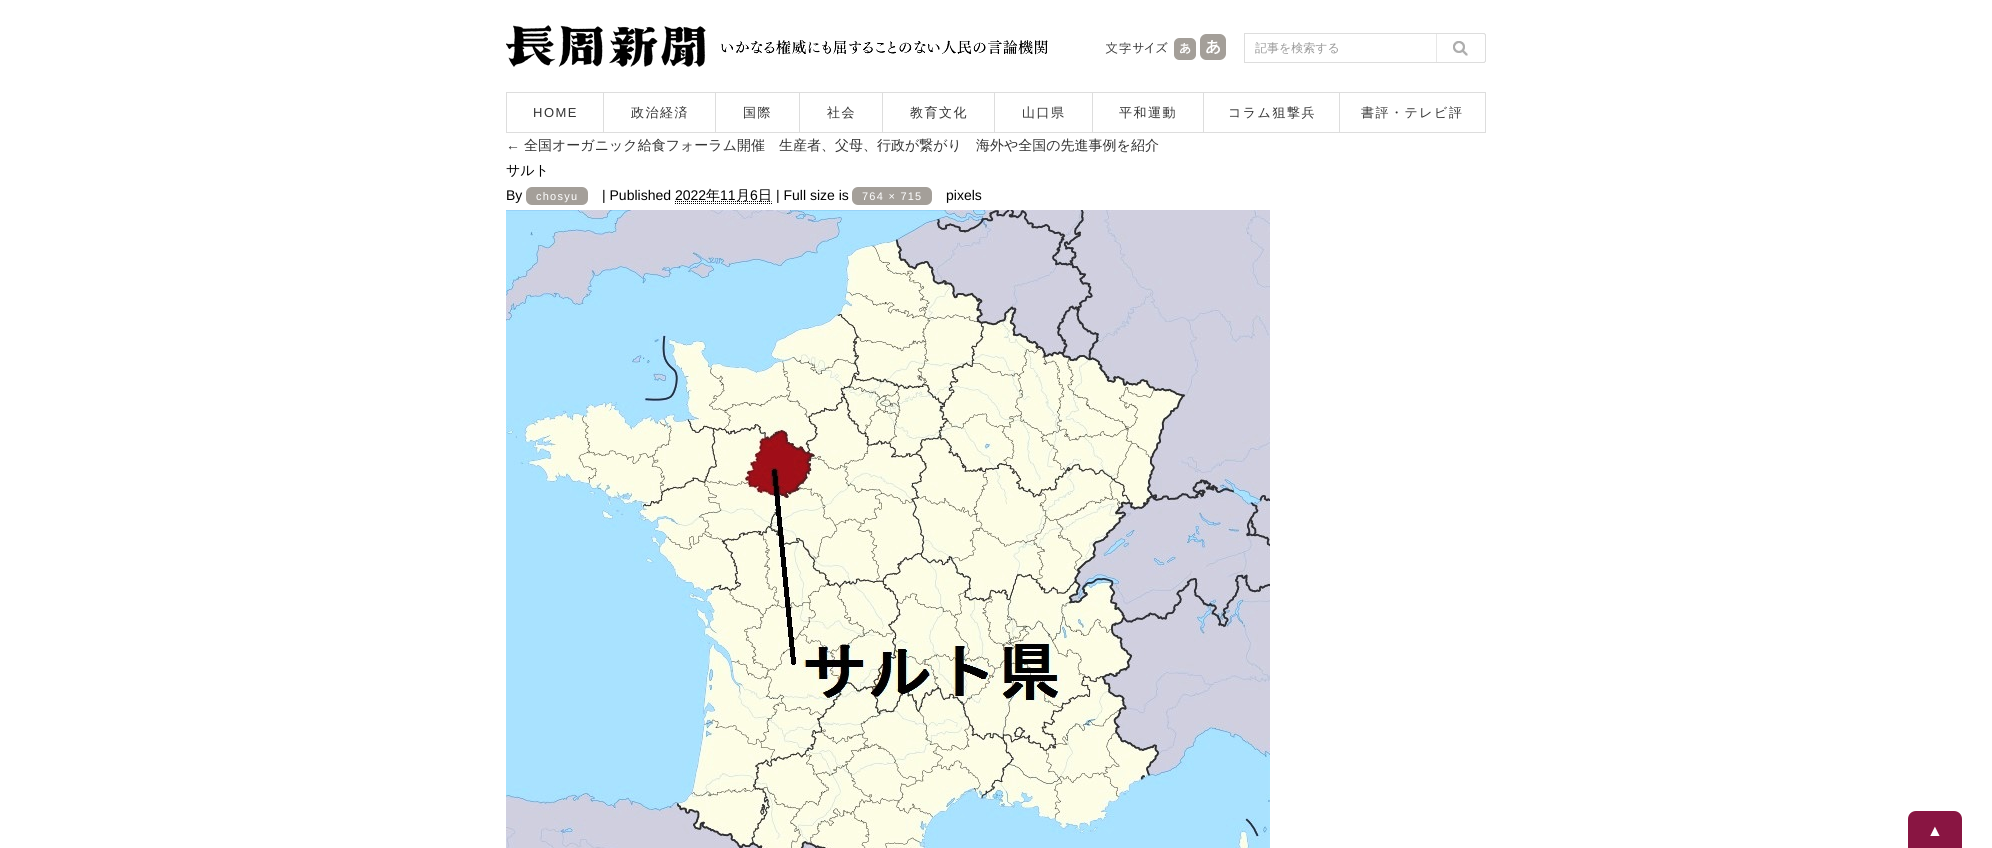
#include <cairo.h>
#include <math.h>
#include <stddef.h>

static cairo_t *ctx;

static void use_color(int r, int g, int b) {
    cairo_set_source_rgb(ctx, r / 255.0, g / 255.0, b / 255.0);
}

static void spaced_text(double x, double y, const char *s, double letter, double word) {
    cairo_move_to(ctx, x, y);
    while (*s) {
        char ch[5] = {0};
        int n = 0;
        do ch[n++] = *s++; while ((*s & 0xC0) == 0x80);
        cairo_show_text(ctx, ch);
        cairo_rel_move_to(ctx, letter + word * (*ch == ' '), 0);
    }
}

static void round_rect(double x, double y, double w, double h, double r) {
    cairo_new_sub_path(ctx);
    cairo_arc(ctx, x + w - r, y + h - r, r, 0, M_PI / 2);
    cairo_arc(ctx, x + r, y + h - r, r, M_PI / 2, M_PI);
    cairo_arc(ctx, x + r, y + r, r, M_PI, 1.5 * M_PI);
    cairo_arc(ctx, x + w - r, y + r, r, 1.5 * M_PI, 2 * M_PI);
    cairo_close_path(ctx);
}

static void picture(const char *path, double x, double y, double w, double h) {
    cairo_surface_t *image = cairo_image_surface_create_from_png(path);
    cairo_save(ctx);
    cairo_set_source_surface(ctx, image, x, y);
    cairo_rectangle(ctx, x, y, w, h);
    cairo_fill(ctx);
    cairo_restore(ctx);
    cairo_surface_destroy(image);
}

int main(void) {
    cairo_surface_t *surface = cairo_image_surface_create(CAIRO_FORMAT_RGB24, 1992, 848);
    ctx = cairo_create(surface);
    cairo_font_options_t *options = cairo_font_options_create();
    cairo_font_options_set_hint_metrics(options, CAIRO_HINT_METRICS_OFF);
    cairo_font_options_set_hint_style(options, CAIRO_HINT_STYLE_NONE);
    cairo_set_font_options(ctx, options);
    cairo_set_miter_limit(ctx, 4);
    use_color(255, 255, 255);
    cairo_paint(ctx);
    picture("img1.png", 506, 25, 200, 42);
    picture("img2.png", 721, 40, 327, 15);
    picture("img3.png", 1105, 42, 63, 12);
    picture("img4.png", 1174, 38, 22, 22);
    picture("img5.png", 1200, 34, 26, 26);
    cairo_rectangle(ctx, 1244.5, 33.5, 241, 29);
    use_color(221, 221, 221);
    cairo_set_line_width(ctx, 1);
    cairo_stroke(ctx);
    cairo_select_font_face(ctx, "WenQuanYi Zen Hei Medium", CAIRO_FONT_SLANT_NORMAL, CAIRO_FONT_WEIGHT_NORMAL);
    cairo_set_font_size(ctx, 12);
    use_color(153, 153, 153);
    cairo_move_to(ctx, 1255, 52);
    cairo_show_text(ctx, "記事を検索する");
    picture("img6.png", 1436, 33, 50, 30);
    cairo_rectangle(ctx, 506.5, 92.5, 97, 40);
    use_color(221, 221, 221);
    cairo_stroke(ctx);
    cairo_select_font_face(ctx, "Liberation Sans", CAIRO_FONT_SLANT_NORMAL, CAIRO_FONT_WEIGHT_NORMAL);
    cairo_set_font_size(ctx, 13);
    use_color(51, 51, 51);
    spaced_text(533, 117, "HOME", 1.5, 0);
    use_color(221, 221, 221);
    cairo_rectangle(ctx, 604, 92, 882, 1);
    cairo_fill(ctx);
    cairo_rectangle(ctx, 715, 92, 1, 41);
    cairo_fill(ctx);
    cairo_rectangle(ctx, 604, 132, 112, 1);
    cairo_fill(ctx);
    cairo_select_font_face(ctx, "WenQuanYi Zen Hei Medium", CAIRO_FONT_SLANT_NORMAL, CAIRO_FONT_WEIGHT_NORMAL);
    use_color(51, 51, 51);
    spaced_text(631, 117, "政治経済", 1.5, 0);
    use_color(221, 221, 221);
    cairo_rectangle(ctx, 799, 92, 1, 41);
    cairo_fill(ctx);
    cairo_rectangle(ctx, 716, 132, 84, 1);
    cairo_fill(ctx);
    use_color(51, 51, 51);
    spaced_text(743, 117, "国際", 1.5, 0);
    use_color(221, 221, 221);
    cairo_rectangle(ctx, 882, 92, 1, 41);
    cairo_fill(ctx);
    cairo_rectangle(ctx, 800, 132, 83, 1);
    cairo_fill(ctx);
    use_color(51, 51, 51);
    spaced_text(827, 117, "社会", 1.5, 0);
    use_color(221, 221, 221);
    cairo_rectangle(ctx, 994, 92, 1, 41);
    cairo_fill(ctx);
    cairo_rectangle(ctx, 883, 132, 112, 1);
    cairo_fill(ctx);
    use_color(51, 51, 51);
    spaced_text(910, 117, "教育文化", 1.5, 0);
    use_color(221, 221, 221);
    cairo_rectangle(ctx, 1092, 92, 1, 41);
    cairo_fill(ctx);
    cairo_rectangle(ctx, 995, 132, 98, 1);
    cairo_fill(ctx);
    use_color(51, 51, 51);
    spaced_text(1022, 117, "山口県", 1.5, 0);
    use_color(221, 221, 221);
    cairo_rectangle(ctx, 1203, 92, 1, 41);
    cairo_fill(ctx);
    cairo_rectangle(ctx, 1093, 132, 111, 1);
    cairo_fill(ctx);
    use_color(51, 51, 51);
    spaced_text(1119, 117, "平和運動", 1.5, 0);
    use_color(221, 221, 221);
    cairo_rectangle(ctx, 1339, 92, 1, 41);
    cairo_fill(ctx);
    cairo_rectangle(ctx, 1204, 132, 136, 1);
    cairo_fill(ctx);
    use_color(51, 51, 51);
    spaced_text(1228, 117, "コラム狙撃兵", 1.5, 0);
    use_color(221, 221, 221);
    cairo_rectangle(ctx, 1485, 92, 1, 41);
    cairo_fill(ctx);
    cairo_rectangle(ctx, 1340, 132, 146, 1);
    cairo_fill(ctx);
    use_color(51, 51, 51);
    spaced_text(1361, 117, "書評・テレビ評", 1.5, 0);
    cairo_select_font_face(ctx, "Liberation Sans", CAIRO_FONT_SLANT_NORMAL, CAIRO_FONT_WEIGHT_NORMAL);
    cairo_set_font_size(ctx, 14);
    cairo_move_to(ctx, 506, 150);
    cairo_show_text(ctx, "←");
    cairo_select_font_face(ctx, "WenQuanYi Zen Hei Medium", CAIRO_FONT_SLANT_NORMAL, CAIRO_FONT_WEIGHT_NORMAL);
    cairo_move_to(ctx, 524, 150);
    cairo_show_text(ctx, "全国オーガニック給食フォーラム開催　生産者、父母、行政が繋がり　海外や全国の先進事例を紹介");
    use_color(0, 0, 0);
    cairo_move_to(ctx, 506, 175);
    cairo_show_text(ctx, "サルト");
    cairo_select_font_face(ctx, "Liberation Sans", CAIRO_FONT_SLANT_NORMAL, CAIRO_FONT_WEIGHT_NORMAL);
    cairo_move_to(ctx, 506, 200);
    cairo_show_text(ctx, "By");
    use_color(164, 159, 153);
    round_rect(526, 187, 62, 18, 6);
    cairo_fill(ctx);
    cairo_set_font_size(ctx, 11);
    use_color(255, 255, 255);
    spaced_text(536, 200, "chosyu", 1.25, 0);
    cairo_set_font_size(ctx, 14);
    use_color(0, 0, 0);
    cairo_move_to(ctx, 602, 200);
    cairo_show_text(ctx, "| Published 2022");
    cairo_new_path(ctx);
    cairo_move_to(ctx, 675, 201.5);
    cairo_line_to(ctx, 771.5, 201.5);
    cairo_set_dash(ctx, (double[]){1, 1}, 2, 0);
    cairo_stroke(ctx);
    cairo_select_font_face(ctx, "WenQuanYi Zen Hei Medium", CAIRO_FONT_SLANT_NORMAL, CAIRO_FONT_WEIGHT_NORMAL);
    cairo_move_to(ctx, 706, 200);
    cairo_show_text(ctx, "年");
    cairo_select_font_face(ctx, "Liberation Sans", CAIRO_FONT_SLANT_NORMAL, CAIRO_FONT_WEIGHT_NORMAL);
    cairo_move_to(ctx, 720, 200);
    cairo_show_text(ctx, "11");
    cairo_select_font_face(ctx, "WenQuanYi Zen Hei Medium", CAIRO_FONT_SLANT_NORMAL, CAIRO_FONT_WEIGHT_NORMAL);
    cairo_move_to(ctx, 736, 200);
    cairo_show_text(ctx, "月");
    cairo_new_path(ctx);
    cairo_move_to(ctx, 675, 203.5);
    cairo_line_to(ctx, 772, 203.5);
    cairo_stroke(ctx);
    cairo_select_font_face(ctx, "Liberation Sans", CAIRO_FONT_SLANT_NORMAL, CAIRO_FONT_WEIGHT_NORMAL);
    cairo_move_to(ctx, 750, 200);
    cairo_show_text(ctx, "6");
    cairo_select_font_face(ctx, "WenQuanYi Zen Hei Medium", CAIRO_FONT_SLANT_NORMAL, CAIRO_FONT_WEIGHT_NORMAL);
    cairo_move_to(ctx, 758, 200);
    cairo_show_text(ctx, "日");
    cairo_select_font_face(ctx, "Liberation Sans", CAIRO_FONT_SLANT_NORMAL, CAIRO_FONT_WEIGHT_NORMAL);
    cairo_move_to(ctx, 776, 200);
    cairo_show_text(ctx, "| Full size is");
    use_color(164, 159, 153);
    round_rect(852, 187, 80, 18, 6);
    cairo_fill(ctx);
    cairo_set_font_size(ctx, 11);
    use_color(255, 255, 255);
    spaced_text(862, 200, "764 × 715", 1.25, 0);
    cairo_set_font_size(ctx, 14);
    use_color(0, 0, 0);
    cairo_move_to(ctx, 946, 200);
    cairo_show_text(ctx, "pixels");
    picture("img7.png", 506, 210, 764, 638);
    use_color(137, 21, 66);
    cairo_new_path(ctx);
    cairo_move_to(ctx, 1916, 811);
    cairo_line_to(ctx, 1954, 811);
    cairo_curve_to(ctx, 1958.5, 811, 1962, 814.5, 1962, 819);
    cairo_line_to(ctx, 1962, 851);
    cairo_line_to(ctx, 1908, 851);
    cairo_line_to(ctx, 1908, 819);
    cairo_curve_to(ctx, 1908, 814.5, 1911.5, 811, 1916, 811);
    cairo_close_path(ctx);
    cairo_fill(ctx);
    cairo_set_font_size(ctx, 16);
    use_color(255, 255, 255);
    cairo_move_to(ctx, 1927, 836);
    cairo_show_text(ctx, "▲");
    cairo_surface_write_to_png(surface, "result.png");
    cairo_font_options_destroy(options);
    cairo_destroy(ctx);
    cairo_surface_destroy(surface);
    return 0;
}
